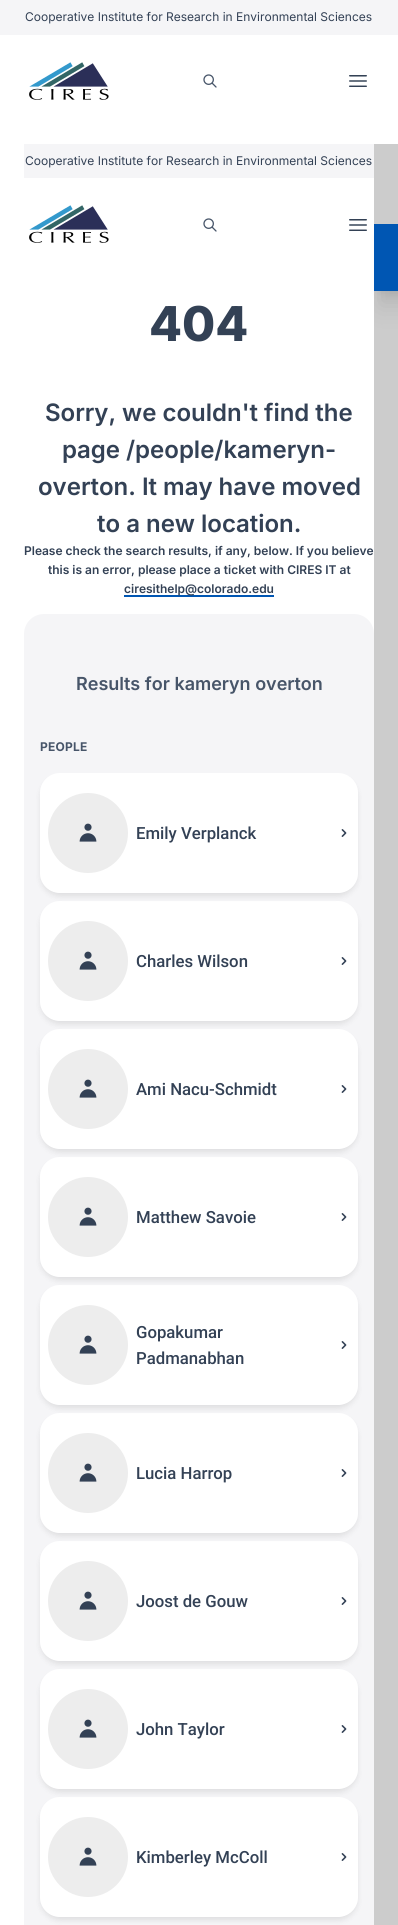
#include <cairo.h>
#include <math.h>
#include <stddef.h>

static cairo_t *ctx;

static void use_color(int r, int g, int b) {
    cairo_set_source_rgb(ctx, r / 255.0, g / 255.0, b / 255.0);
}

static void spaced_text(double x, double y, const char *s, double letter, double word) {
    cairo_move_to(ctx, x, y);
    while (*s) {
        char ch[5] = {0};
        int n = 0;
        do ch[n++] = *s++; while ((*s & 0xC0) == 0x80);
        cairo_show_text(ctx, ch);
        cairo_rel_move_to(ctx, letter + word * (*ch == ' '), 0);
    }
}

static void round_rect(double x, double y, double w, double h, double r) {
    cairo_new_sub_path(ctx);
    cairo_arc(ctx, x + w - r, y + h - r, r, 0, M_PI / 2);
    cairo_arc(ctx, x + r, y + h - r, r, M_PI / 2, M_PI);
    cairo_arc(ctx, x + r, y + r, r, M_PI, 1.5 * M_PI);
    cairo_arc(ctx, x + w - r, y + r, r, 1.5 * M_PI, 2 * M_PI);
    cairo_close_path(ctx);
}

static void shadow(double x, double y, double w, double h, double r, double blur, double alpha) {
    cairo_push_group_with_content(ctx, CAIRO_CONTENT_ALPHA);
    cairo_set_operator(ctx, CAIRO_OPERATOR_SOURCE);
    for (int i = 15; i >= -15 && fmin(w, h) + blur * i / 3 > 0; i -= 2) {
        double e = blur * i / 6;
        cairo_set_source_rgba(ctx, 0, 0, 0, alpha * erfc((i - 1) / 8.5) / 2);
        round_rect(x - e, y - e, w + 2 * e, h + 2 * e, fmax(0, fmin(r + e + blur * .6, fmin(w, h) / 2 + e)));
        cairo_fill(ctx);
    }
    cairo_pattern_t *soft = cairo_pop_group(ctx);
    cairo_mask(ctx, soft);
    cairo_pattern_destroy(soft);
}

static void picture(const char *path, double x, double y, double w, double h) {
    cairo_surface_t *image = cairo_image_surface_create_from_png(path);
    cairo_save(ctx);
    cairo_set_source_surface(ctx, image, x, y);
    cairo_rectangle(ctx, x, y, w, h);
    cairo_fill(ctx);
    cairo_restore(ctx);
    cairo_surface_destroy(image);
}

int main(void) {
    cairo_surface_t *surface = cairo_image_surface_create(CAIRO_FORMAT_RGB24, 398, 1925);
    ctx = cairo_create(surface);
    cairo_font_options_t *options = cairo_font_options_create();
    cairo_font_options_set_hint_metrics(options, CAIRO_HINT_METRICS_OFF);
    cairo_font_options_set_hint_style(options, CAIRO_HINT_STYLE_NONE);
    cairo_set_font_options(ctx, options);
    cairo_set_miter_limit(ctx, 4);
    use_color(255, 255, 255);
    cairo_paint(ctx);
    use_color(245, 245, 247);
    cairo_rectangle(ctx, 0, 0, 398, 35);
    cairo_fill(ctx);
    cairo_select_font_face(ctx, "Inter", CAIRO_FONT_SLANT_NORMAL, CAIRO_FONT_WEIGHT_NORMAL);
    cairo_set_font_size(ctx, 12);
    use_color(51, 65, 85);
    cairo_move_to(ctx, 25, 21);
    cairo_show_text(ctx, "Cooperative Institute for Research in Environmental Sciences");
    picture("img1.png", 29, 62, 80, 38);
    picture("img2.png", 203, 74, 14, 14);
    picture("img3.png", 349, 75, 18, 12);
    use_color(245, 245, 247);
    cairo_rectangle(ctx, 24, 144, 350, 34);
    cairo_fill(ctx);
    use_color(51, 65, 85);
    cairo_move_to(ctx, 25, 165);
    cairo_show_text(ctx, "Cooperative Institute for Research in Environmental Sciences");
    picture("img1.png", 29, 205, 80, 38);
    picture("img2.png", 203, 218, 14, 14);
    use_color(204, 204, 204);
    cairo_rectangle(ctx, 374, 144, 24, 1781);
    cairo_fill(ctx);
    picture("img3.png", 349, 219, 18, 12);
    use_color(0, 0, 0);
    shadow(380, 238, 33, 55, 0, 5, 0.1);
    cairo_save(ctx);
    cairo_rectangle(ctx, 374, 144, 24, 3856);
    cairo_clip(ctx);
    shadow(379, 249, 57, 57, 0, 12.5, 0.1);
    cairo_restore(ctx);
    use_color(0, 86, 179);
    cairo_rectangle(ctx, 374, 224, 24, 67);
    cairo_fill(ctx);
    cairo_select_font_face(ctx, "Inter ExtraBold", CAIRO_FONT_SLANT_NORMAL, CAIRO_FONT_WEIGHT_NORMAL);
    cairo_set_font_size(ctx, 48);
    use_color(51, 65, 85);
    cairo_move_to(ctx, 149, 341);
    cairo_show_text(ctx, "404");
    cairo_select_font_face(ctx, "Inter SemiBold", CAIRO_FONT_SLANT_NORMAL, CAIRO_FONT_WEIGHT_NORMAL);
    cairo_set_font_size(ctx, 24);
    cairo_move_to(ctx, 45, 421);
    cairo_show_text(ctx, "Sorry, we couldn't find the");
    cairo_move_to(ctx, 62, 458);
    cairo_show_text(ctx, "page /people/kameryn-");
    cairo_move_to(ctx, 38, 495);
    cairo_show_text(ctx, "overton. It may have moved");
    cairo_move_to(ctx, 97, 532);
    cairo_show_text(ctx, "to a new location.");
    cairo_set_font_size(ctx, 12);
    cairo_move_to(ctx, 24, 555);
    cairo_show_text(ctx, "Please check the search results, if any, below. If you believe");
    cairo_move_to(ctx, 48, 574);
    cairo_show_text(ctx, "this is an error, please place a ticket with CIRES IT at");
    use_color(0, 86, 179);
    cairo_rectangle(ctx, 124, 595, 150, 2);
    cairo_fill(ctx);
    use_color(51, 65, 85);
    cairo_move_to(ctx, 124, 593);
    cairo_show_text(ctx, "ciresithelp@colorado.edu");
    use_color(245, 245, 247);
    round_rect(24, 614, 350, 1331, 20);
    cairo_fill(ctx);
    cairo_set_font_size(ctx, 18);
    use_color(71, 85, 105);
    cairo_move_to(ctx, 76, 690);
    cairo_show_text(ctx, "Results for kameryn overton");
    cairo_select_font_face(ctx, "Inter", CAIRO_FONT_SLANT_NORMAL, CAIRO_FONT_WEIGHT_BOLD);
    cairo_set_font_size(ctx, 12);
    spaced_text(40, 751, "PEOPLE", 0.25, 0);
    use_color(255, 255, 255);
    round_rect(40, 773, 318, 120, 20);
    cairo_fill(ctx);
    round_rect(40, 901, 318, 120, 20);
    cairo_fill(ctx);
    cairo_save(ctx);
    cairo_set_fill_rule(ctx, CAIRO_FILL_RULE_EVEN_ODD);
    cairo_new_path(ctx);
    cairo_move_to(ctx, 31, 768);
    cairo_line_to(ctx, 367, 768);
    cairo_line_to(ctx, 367, 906);
    cairo_line_to(ctx, 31, 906);
    cairo_close_path(ctx);
    cairo_move_to(ctx, 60, 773);
    cairo_line_to(ctx, 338, 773);
    cairo_curve_to(ctx, 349, 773, 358, 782, 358, 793);
    cairo_line_to(ctx, 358, 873);
    cairo_curve_to(ctx, 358, 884, 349, 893, 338, 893);
    cairo_line_to(ctx, 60, 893);
    cairo_curve_to(ctx, 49, 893, 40, 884, 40, 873);
    cairo_line_to(ctx, 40, 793);
    cairo_curve_to(ctx, 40, 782, 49, 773, 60, 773);
    cairo_close_path(ctx);
    cairo_clip(ctx);
    use_color(0, 0, 0);
    shadow(41, 778, 316, 118, 19, 3, 0.1);
    cairo_restore(ctx);
    use_color(237, 237, 237);
    cairo_arc(ctx, 88, 833, 40, 0, 2 * M_PI);
    cairo_fill(ctx);
    picture("img4.png", 79, 823, 18, 19);
    cairo_select_font_face(ctx, "Roboto Medium", CAIRO_FONT_SLANT_NORMAL, CAIRO_FONT_WEIGHT_NORMAL);
    cairo_set_font_size(ctx, 16.75);
    use_color(51, 65, 85);
    cairo_move_to(ctx, 136, 839);
    cairo_show_text(ctx, "Emily Verplanck");
    picture("img5.png", 341, 829, 6, 8);
    use_color(255, 255, 255);
    round_rect(40, 1029, 318, 120, 20);
    cairo_fill(ctx);
    cairo_save(ctx);
    cairo_set_fill_rule(ctx, CAIRO_FILL_RULE_EVEN_ODD);
    cairo_new_path(ctx);
    cairo_move_to(ctx, 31, 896);
    cairo_line_to(ctx, 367, 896);
    cairo_line_to(ctx, 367, 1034);
    cairo_line_to(ctx, 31, 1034);
    cairo_close_path(ctx);
    cairo_move_to(ctx, 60, 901);
    cairo_line_to(ctx, 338, 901);
    cairo_curve_to(ctx, 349, 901, 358, 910, 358, 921);
    cairo_line_to(ctx, 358, 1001);
    cairo_curve_to(ctx, 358, 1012, 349, 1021, 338, 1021);
    cairo_line_to(ctx, 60, 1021);
    cairo_curve_to(ctx, 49, 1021, 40, 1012, 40, 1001);
    cairo_line_to(ctx, 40, 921);
    cairo_curve_to(ctx, 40, 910, 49, 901, 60, 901);
    cairo_close_path(ctx);
    cairo_clip(ctx);
    use_color(0, 0, 0);
    shadow(41, 906, 316, 118, 19, 3, 0.1);
    cairo_restore(ctx);
    use_color(237, 237, 237);
    cairo_arc(ctx, 88, 961, 40, 0, 2 * M_PI);
    cairo_fill(ctx);
    picture("img4.png", 79, 951, 18, 19);
    use_color(51, 65, 85);
    cairo_move_to(ctx, 136, 967);
    cairo_show_text(ctx, "Charles Wilson");
    picture("img5.png", 341, 957, 6, 8);
    use_color(255, 255, 255);
    round_rect(40, 1157, 318, 120, 20);
    cairo_fill(ctx);
    cairo_save(ctx);
    cairo_set_fill_rule(ctx, CAIRO_FILL_RULE_EVEN_ODD);
    cairo_new_path(ctx);
    cairo_move_to(ctx, 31, 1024);
    cairo_line_to(ctx, 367, 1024);
    cairo_line_to(ctx, 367, 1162);
    cairo_line_to(ctx, 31, 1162);
    cairo_close_path(ctx);
    cairo_move_to(ctx, 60, 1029);
    cairo_line_to(ctx, 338, 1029);
    cairo_curve_to(ctx, 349, 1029, 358, 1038, 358, 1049);
    cairo_line_to(ctx, 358, 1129);
    cairo_curve_to(ctx, 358, 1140, 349, 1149, 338, 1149);
    cairo_line_to(ctx, 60, 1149);
    cairo_curve_to(ctx, 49, 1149, 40, 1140, 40, 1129);
    cairo_line_to(ctx, 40, 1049);
    cairo_curve_to(ctx, 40, 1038, 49, 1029, 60, 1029);
    cairo_close_path(ctx);
    cairo_clip(ctx);
    use_color(0, 0, 0);
    shadow(41, 1034, 316, 118, 19, 3, 0.1);
    cairo_restore(ctx);
    use_color(237, 237, 237);
    cairo_arc(ctx, 88, 1089, 40, 0, 2 * M_PI);
    cairo_fill(ctx);
    picture("img4.png", 79, 1079, 18, 19);
    use_color(51, 65, 85);
    cairo_move_to(ctx, 136, 1095);
    cairo_show_text(ctx, "Ami Nacu-Schmidt");
    picture("img5.png", 341, 1085, 6, 8);
    use_color(255, 255, 255);
    round_rect(40, 1285, 318, 120, 20);
    cairo_fill(ctx);
    cairo_save(ctx);
    cairo_set_fill_rule(ctx, CAIRO_FILL_RULE_EVEN_ODD);
    cairo_new_path(ctx);
    cairo_move_to(ctx, 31, 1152);
    cairo_line_to(ctx, 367, 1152);
    cairo_line_to(ctx, 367, 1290);
    cairo_line_to(ctx, 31, 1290);
    cairo_close_path(ctx);
    cairo_move_to(ctx, 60, 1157);
    cairo_line_to(ctx, 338, 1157);
    cairo_curve_to(ctx, 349, 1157, 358, 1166, 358, 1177);
    cairo_line_to(ctx, 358, 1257);
    cairo_curve_to(ctx, 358, 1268, 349, 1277, 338, 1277);
    cairo_line_to(ctx, 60, 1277);
    cairo_curve_to(ctx, 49, 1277, 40, 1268, 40, 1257);
    cairo_line_to(ctx, 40, 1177);
    cairo_curve_to(ctx, 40, 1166, 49, 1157, 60, 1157);
    cairo_close_path(ctx);
    cairo_clip(ctx);
    use_color(0, 0, 0);
    shadow(41, 1162, 316, 118, 19, 3, 0.1);
    cairo_restore(ctx);
    use_color(237, 237, 237);
    cairo_arc(ctx, 88, 1217, 40, 0, 2 * M_PI);
    cairo_fill(ctx);
    picture("img4.png", 79, 1207, 18, 19);
    use_color(51, 65, 85);
    cairo_move_to(ctx, 136, 1223);
    cairo_show_text(ctx, "Matthew Savoie");
    picture("img5.png", 341, 1213, 6, 8);
    use_color(255, 255, 255);
    round_rect(40, 1413, 318, 120, 20);
    cairo_fill(ctx);
    cairo_save(ctx);
    cairo_set_fill_rule(ctx, CAIRO_FILL_RULE_EVEN_ODD);
    cairo_new_path(ctx);
    cairo_move_to(ctx, 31, 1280);
    cairo_line_to(ctx, 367, 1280);
    cairo_line_to(ctx, 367, 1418);
    cairo_line_to(ctx, 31, 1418);
    cairo_close_path(ctx);
    cairo_move_to(ctx, 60, 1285);
    cairo_line_to(ctx, 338, 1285);
    cairo_curve_to(ctx, 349, 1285, 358, 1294, 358, 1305);
    cairo_line_to(ctx, 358, 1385);
    cairo_curve_to(ctx, 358, 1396, 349, 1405, 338, 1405);
    cairo_line_to(ctx, 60, 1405);
    cairo_curve_to(ctx, 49, 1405, 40, 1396, 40, 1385);
    cairo_line_to(ctx, 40, 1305);
    cairo_curve_to(ctx, 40, 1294, 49, 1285, 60, 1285);
    cairo_close_path(ctx);
    cairo_clip(ctx);
    use_color(0, 0, 0);
    shadow(41, 1290, 316, 118, 19, 3, 0.1);
    cairo_restore(ctx);
    use_color(237, 237, 237);
    cairo_arc(ctx, 88, 1345, 40, 0, 2 * M_PI);
    cairo_fill(ctx);
    picture("img4.png", 79, 1335, 18, 19);
    use_color(51, 65, 85);
    cairo_move_to(ctx, 136, 1338);
    cairo_show_text(ctx, "Gopakumar");
    cairo_move_to(ctx, 136, 1364);
    cairo_show_text(ctx, "Padmanabhan");
    picture("img5.png", 341, 1341, 6, 8);
    use_color(255, 255, 255);
    round_rect(40, 1541, 318, 120, 20);
    cairo_fill(ctx);
    cairo_save(ctx);
    cairo_set_fill_rule(ctx, CAIRO_FILL_RULE_EVEN_ODD);
    cairo_new_path(ctx);
    cairo_move_to(ctx, 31, 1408);
    cairo_line_to(ctx, 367, 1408);
    cairo_line_to(ctx, 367, 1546);
    cairo_line_to(ctx, 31, 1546);
    cairo_close_path(ctx);
    cairo_move_to(ctx, 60, 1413);
    cairo_line_to(ctx, 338, 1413);
    cairo_curve_to(ctx, 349, 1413, 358, 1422, 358, 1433);
    cairo_line_to(ctx, 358, 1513);
    cairo_curve_to(ctx, 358, 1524, 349, 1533, 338, 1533);
    cairo_line_to(ctx, 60, 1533);
    cairo_curve_to(ctx, 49, 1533, 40, 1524, 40, 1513);
    cairo_line_to(ctx, 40, 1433);
    cairo_curve_to(ctx, 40, 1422, 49, 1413, 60, 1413);
    cairo_close_path(ctx);
    cairo_clip(ctx);
    use_color(0, 0, 0);
    shadow(41, 1418, 316, 118, 19, 3, 0.1);
    cairo_restore(ctx);
    use_color(237, 237, 237);
    cairo_arc(ctx, 88, 1473, 40, 0, 2 * M_PI);
    cairo_fill(ctx);
    picture("img4.png", 79, 1463, 18, 19);
    use_color(51, 65, 85);
    cairo_move_to(ctx, 136, 1479);
    cairo_show_text(ctx, "Lucia Harrop");
    picture("img5.png", 341, 1469, 6, 8);
    use_color(255, 255, 255);
    round_rect(40, 1669, 318, 120, 20);
    cairo_fill(ctx);
    cairo_save(ctx);
    cairo_set_fill_rule(ctx, CAIRO_FILL_RULE_EVEN_ODD);
    cairo_new_path(ctx);
    cairo_move_to(ctx, 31, 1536);
    cairo_line_to(ctx, 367, 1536);
    cairo_line_to(ctx, 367, 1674);
    cairo_line_to(ctx, 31, 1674);
    cairo_close_path(ctx);
    cairo_move_to(ctx, 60, 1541);
    cairo_line_to(ctx, 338, 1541);
    cairo_curve_to(ctx, 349, 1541, 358, 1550, 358, 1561);
    cairo_line_to(ctx, 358, 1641);
    cairo_curve_to(ctx, 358, 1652, 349, 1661, 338, 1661);
    cairo_line_to(ctx, 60, 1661);
    cairo_curve_to(ctx, 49, 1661, 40, 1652, 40, 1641);
    cairo_line_to(ctx, 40, 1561);
    cairo_curve_to(ctx, 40, 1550, 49, 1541, 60, 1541);
    cairo_close_path(ctx);
    cairo_clip(ctx);
    use_color(0, 0, 0);
    shadow(41, 1546, 316, 118, 19, 3, 0.1);
    cairo_restore(ctx);
    use_color(237, 237, 237);
    cairo_arc(ctx, 88, 1601, 40, 0, 2 * M_PI);
    cairo_fill(ctx);
    picture("img4.png", 79, 1591, 18, 19);
    use_color(51, 65, 85);
    cairo_move_to(ctx, 136, 1607);
    cairo_show_text(ctx, "Joost de Gouw");
    picture("img5.png", 341, 1597, 6, 8);
    use_color(255, 255, 255);
    round_rect(40, 1797, 318, 120, 20);
    cairo_fill(ctx);
    cairo_save(ctx);
    cairo_set_fill_rule(ctx, CAIRO_FILL_RULE_EVEN_ODD);
    cairo_new_path(ctx);
    cairo_move_to(ctx, 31, 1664);
    cairo_line_to(ctx, 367, 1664);
    cairo_line_to(ctx, 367, 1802);
    cairo_line_to(ctx, 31, 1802);
    cairo_close_path(ctx);
    cairo_move_to(ctx, 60, 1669);
    cairo_line_to(ctx, 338, 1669);
    cairo_curve_to(ctx, 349, 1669, 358, 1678, 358, 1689);
    cairo_line_to(ctx, 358, 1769);
    cairo_curve_to(ctx, 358, 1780, 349, 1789, 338, 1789);
    cairo_line_to(ctx, 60, 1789);
    cairo_curve_to(ctx, 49, 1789, 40, 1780, 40, 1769);
    cairo_line_to(ctx, 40, 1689);
    cairo_curve_to(ctx, 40, 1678, 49, 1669, 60, 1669);
    cairo_close_path(ctx);
    cairo_clip(ctx);
    use_color(0, 0, 0);
    shadow(41, 1674, 316, 118, 19, 3, 0.1);
    cairo_restore(ctx);
    use_color(237, 237, 237);
    cairo_arc(ctx, 88, 1729, 40, 0, 2 * M_PI);
    cairo_fill(ctx);
    picture("img4.png", 79, 1719, 18, 19);
    use_color(51, 65, 85);
    cairo_move_to(ctx, 136, 1735);
    cairo_show_text(ctx, "John Taylor");
    picture("img5.png", 341, 1725, 6, 8);
    cairo_save(ctx);
    cairo_set_fill_rule(ctx, CAIRO_FILL_RULE_EVEN_ODD);
    cairo_new_path(ctx);
    cairo_move_to(ctx, 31, 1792);
    cairo_line_to(ctx, 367, 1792);
    cairo_line_to(ctx, 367, 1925);
    cairo_line_to(ctx, 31, 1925);
    cairo_close_path(ctx);
    cairo_move_to(ctx, 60, 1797);
    cairo_line_to(ctx, 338, 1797);
    cairo_curve_to(ctx, 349, 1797, 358, 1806, 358, 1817);
    cairo_line_to(ctx, 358, 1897);
    cairo_curve_to(ctx, 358, 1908, 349, 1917, 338, 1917);
    cairo_line_to(ctx, 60, 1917);
    cairo_curve_to(ctx, 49, 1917, 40, 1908, 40, 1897);
    cairo_line_to(ctx, 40, 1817);
    cairo_curve_to(ctx, 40, 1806, 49, 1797, 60, 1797);
    cairo_close_path(ctx);
    cairo_clip(ctx);
    use_color(0, 0, 0);
    shadow(41, 1802, 316, 118, 19, 3, 0.1);
    cairo_restore(ctx);
    use_color(237, 237, 237);
    cairo_arc(ctx, 88, 1857, 40, 0, 2 * M_PI);
    cairo_fill(ctx);
    picture("img4.png", 79, 1847, 18, 19);
    use_color(51, 65, 85);
    cairo_move_to(ctx, 136, 1863);
    cairo_show_text(ctx, "Kimberley McColl");
    picture("img5.png", 341, 1853, 6, 8);
    cairo_surface_write_to_png(surface, "result.png");
    cairo_font_options_destroy(options);
    cairo_destroy(ctx);
    cairo_surface_destroy(surface);
    return 0;
}
